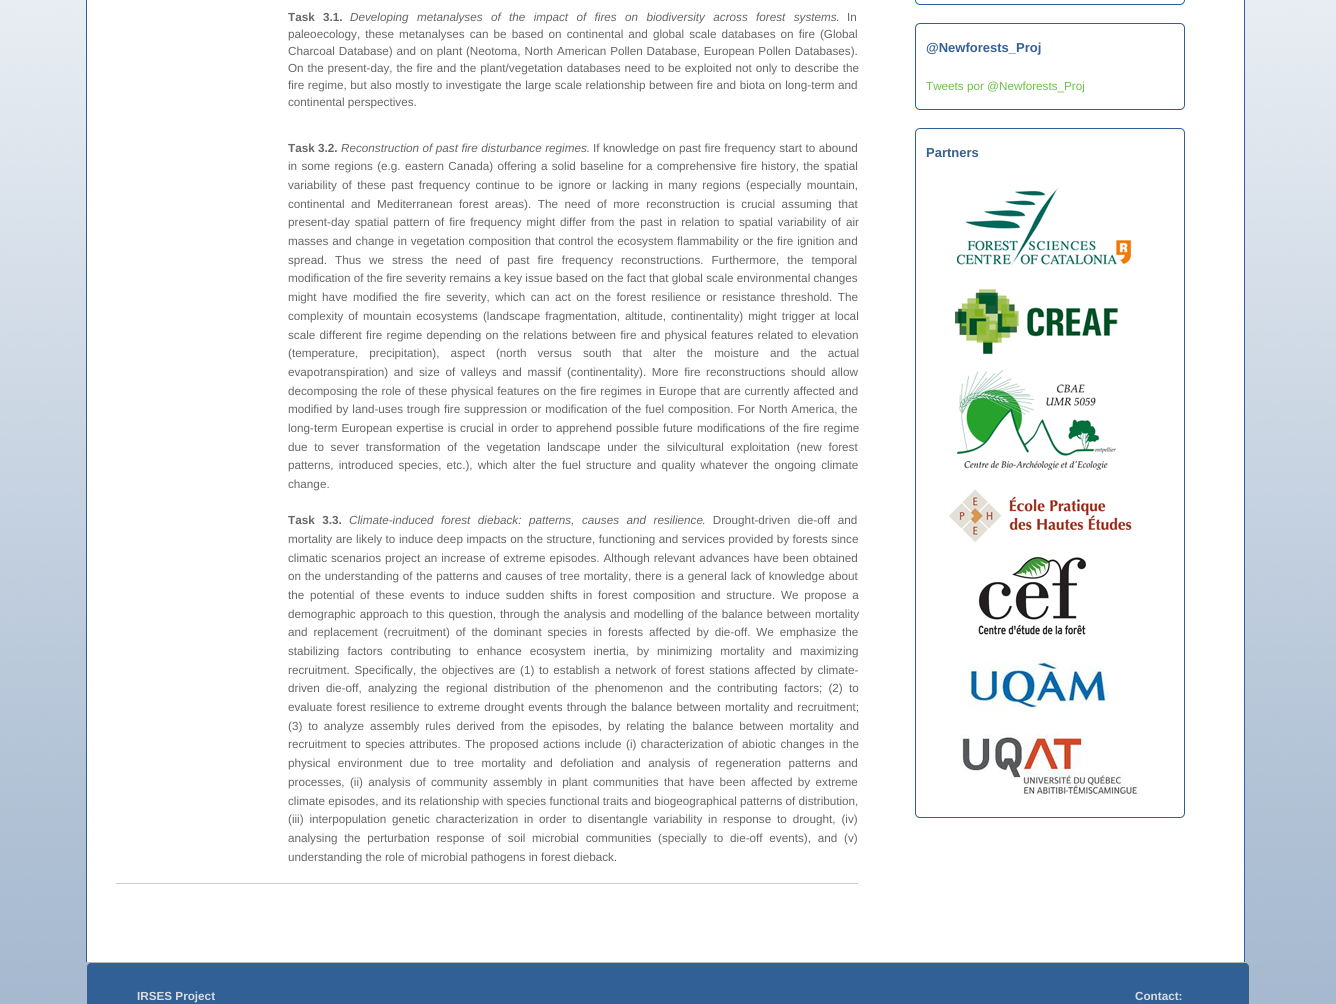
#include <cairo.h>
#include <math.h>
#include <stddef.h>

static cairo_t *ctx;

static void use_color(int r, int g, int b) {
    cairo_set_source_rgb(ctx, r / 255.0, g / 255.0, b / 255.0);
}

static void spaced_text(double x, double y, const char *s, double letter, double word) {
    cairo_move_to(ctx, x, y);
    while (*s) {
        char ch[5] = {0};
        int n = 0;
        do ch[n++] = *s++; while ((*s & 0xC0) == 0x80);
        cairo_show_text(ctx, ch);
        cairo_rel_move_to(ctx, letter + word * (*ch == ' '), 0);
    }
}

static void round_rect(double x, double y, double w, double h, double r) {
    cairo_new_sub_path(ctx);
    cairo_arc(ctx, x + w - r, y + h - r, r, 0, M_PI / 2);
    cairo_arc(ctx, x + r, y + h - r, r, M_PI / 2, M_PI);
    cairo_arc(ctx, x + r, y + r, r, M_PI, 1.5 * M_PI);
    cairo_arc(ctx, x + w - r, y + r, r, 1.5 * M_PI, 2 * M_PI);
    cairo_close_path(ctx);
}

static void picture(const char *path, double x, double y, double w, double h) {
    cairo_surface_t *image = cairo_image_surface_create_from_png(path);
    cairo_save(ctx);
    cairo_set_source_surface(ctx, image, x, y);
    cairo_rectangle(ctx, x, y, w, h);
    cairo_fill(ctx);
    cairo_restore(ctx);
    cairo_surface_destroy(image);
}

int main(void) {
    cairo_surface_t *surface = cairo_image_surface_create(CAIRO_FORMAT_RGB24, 1336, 1004);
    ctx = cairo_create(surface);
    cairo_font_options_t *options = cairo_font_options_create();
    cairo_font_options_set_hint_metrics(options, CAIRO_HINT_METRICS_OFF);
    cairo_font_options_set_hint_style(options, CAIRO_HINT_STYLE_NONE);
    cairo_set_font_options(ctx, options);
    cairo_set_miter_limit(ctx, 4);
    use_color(255, 255, 255);
    cairo_paint(ctx);
    picture("img1.png", 0, 0, 1336, 1004);
    use_color(255, 255, 255);
    cairo_rectangle(ctx, 87, 0, 1157, 962);
    cairo_fill(ctx);
    use_color(48, 96, 149);
    cairo_rectangle(ctx, 1244, 0, 1, 962);
    cairo_fill(ctx);
    cairo_rectangle(ctx, 86, 0, 1, 962);
    cairo_fill(ctx);
    use_color(204, 204, 204);
    cairo_rectangle(ctx, 116, 883, 742, 1);
    cairo_fill(ctx);
    cairo_select_font_face(ctx, "Liberation Sans", CAIRO_FONT_SLANT_NORMAL, CAIRO_FONT_WEIGHT_BOLD);
    cairo_set_font_size(ctx, 11.7);
    use_color(102, 102, 102);
    spaced_text(288, 21, "Task 3.1.", 0, 5.1);
    cairo_select_font_face(ctx, "Liberation Sans", CAIRO_FONT_SLANT_ITALIC, CAIRO_FONT_WEIGHT_NORMAL);
    spaced_text(350, 21, "Developing metanalyses of the impact of fires on biodiversity across forest systems.", 0, 5.1);
    cairo_select_font_face(ctx, "Liberation Sans", CAIRO_FONT_SLANT_NORMAL, CAIRO_FONT_WEIGHT_NORMAL);
    cairo_move_to(ctx, 847, 21);
    cairo_show_text(ctx, "In");
    spaced_text(288, 38, "paleoecology, these metanalyses can be based on continental and global scale databases on fire (Global", 0, 1.8);
    spaced_text(288, 55, "Charcoal Database) and on plant (Neotoma, North American Pollen Database, European Pollen Databases).", 0, 0.6);
    spaced_text(288, 72, "On the present-day, the fire and the plant/vegetation databases need to be exploited not only to describe the", 0, 0.6);
    spaced_text(288, 89, "fire regime, but also mostly to investigate the large scale relationship between fire and biota on long-term and", 0, 0.3);
    cairo_move_to(ctx, 288, 106);
    cairo_show_text(ctx, "continental perspectives.");
    cairo_select_font_face(ctx, "Liberation Sans", CAIRO_FONT_SLANT_NORMAL, CAIRO_FONT_WEIGHT_BOLD);
    cairo_move_to(ctx, 288, 152);
    cairo_show_text(ctx, "Task 3.2.");
    cairo_select_font_face(ctx, "Liberation Sans", CAIRO_FONT_SLANT_ITALIC, CAIRO_FONT_WEIGHT_NORMAL);
    spaced_text(341, 152, "Reconstruction of past fire disturbance regimes.", 0, 0.25);
    cairo_select_font_face(ctx, "Liberation Sans", CAIRO_FONT_SLANT_NORMAL, CAIRO_FONT_WEIGHT_NORMAL);
    spaced_text(593, 152, "If knowledge on past fire frequency start to abound", 0, 0.25);
    spaced_text(288, 170, "in some regions (e.g. eastern Canada) offering a solid baseline for a comprehensive fire history, the spatial", 0, 1.1);
    spaced_text(288, 189, "variability of these past frequency continue to be ignore or lacking in many regions (especially mountain,", 0, 2.1);
    spaced_text(288, 208, "continental and Mediterranean forest areas). The need of more reconstruction is crucial assuming that", 0, 3.25);
    spaced_text(288, 226, "present-day spatial pattern of fire frequency might differ from the past in relation to spatial variability of air", 0, 1.6);
    spaced_text(288, 245, "masses and change in vegetation composition that control the ecosystem flammability or the fire ignition and", 0, 0.6);
    spaced_text(288, 264, "spread. Thus we stress the need of past fire frequency reconstructions. Furthermore, the temporal", 0, 4.75);
    cairo_move_to(ctx, 288, 282);
    cairo_show_text(ctx, "modification of the fire severity remains a key issue based on the fact that global scale environmental changes");
    spaced_text(288, 301, "might have modified the fire severity, which can act on the forest resilience or resistance threshold. The", 0, 2.25);
    spaced_text(288, 320, "complexity of mountain ecosystems (landscape fragmentation, altitude, continentality) might trigger at local", 0, 1.75);
    spaced_text(288, 339, "scale different fire regime depending on the relations between fire and physical features related to elevation", 0, 1);
    spaced_text(288, 357, "(temperature, precipitation), aspect (north versus south that alter the moisture and the actual", 0, 7.75);
    spaced_text(288, 376, "evapotranspiration) and size of valleys and massif (continentality). More fire reconstructions should allow", 0, 2.4);
    spaced_text(288, 395, "decomposing the role of these physical features on the fire regimes in Europe that are currently affected and", 0, 0.6);
    spaced_text(288, 413, "modified by land-uses trough fire suppression or modification of the fuel composition. For North America, the", 0, 0.6);
    spaced_text(288, 432, "long-term European expertise is crucial in order to apprehend possible future modifications of the fire regime", 0, 0.75);
    spaced_text(288, 451, "due to sever transformation of the vegetation landscape under the silvicultural exploitation (new forest", 0, 3.4);
    spaced_text(288, 469, "patterns, introduced species, etc.), which alter the fuel structure and quality whatever the ongoing climate", 0, 1.9);
    cairo_move_to(ctx, 288, 488);
    cairo_show_text(ctx, "change.");
    cairo_select_font_face(ctx, "Liberation Sans", CAIRO_FONT_SLANT_NORMAL, CAIRO_FONT_WEIGHT_BOLD);
    spaced_text(288, 524, "Task 3.3.", 0, 4.25);
    cairo_select_font_face(ctx, "Liberation Sans", CAIRO_FONT_SLANT_ITALIC, CAIRO_FONT_WEIGHT_NORMAL);
    spaced_text(349, 524, "Climate-induced forest dieback: patterns, causes and resilience", 0, 4.25);
    cairo_select_font_face(ctx, "Liberation Sans", CAIRO_FONT_SLANT_NORMAL, CAIRO_FONT_WEIGHT_NORMAL);
    spaced_text(702, 524, ". Drought-driven die-off and", 0, 4.25);
    spaced_text(288, 543, "mortality are likely to induce deep impacts on the structure, functioning and services provided by forests since", 0, 0.25);
    spaced_text(288, 562, "climatic scenarios project an increase of extreme episodes. Although relevant advances have been obtained", 0, 0.75);
    spaced_text(288, 580, "on the understanding of the patterns and causes of tree mortality, there is a general lack of knowledge about", 0, 0.5);
    spaced_text(288, 599, "the potential of these events to induce sudden shifts in forest composition and structure. We propose a", 0, 2.5);
    spaced_text(288, 618, "demographic approach to this question, through the analysis and modelling of the balance between mortality", 0, 0.75);
    spaced_text(288, 636, "and replacement (recruitment) of the dominant species in forests affected by die-off. We emphasize the", 0, 2.6);
    spaced_text(288, 655, "stabilizing factors contributing to enhance ecosystem inertia, by minimizing mortality and maximizing", 0, 4.75);
    spaced_text(288, 674, "recruitment. Specifically, the objectives are (1) to establish a network of forest stations affected by climate-", 0, 1.4);
    spaced_text(288, 692, "driven die-off, analyzing the regional distribution of the phenomenon and the contributing factors; (2) to", 0, 2.9);
    spaced_text(288, 711, "evaluate forest resilience to extreme drought events through the balance between mortality and recruitment;", 0, 1);
    spaced_text(288, 730, "(3) to analyze assembly rules derived from the episodes, by relating the balance between mortality and", 0, 2.6);
    spaced_text(288, 748, "recruitment to species attributes. The proposed actions include (i) characterization of abiotic changes in the", 0, 1.2);
    spaced_text(288, 767, "physical environment due to tree mortality and defoliation and analysis of regeneration patterns and", 0, 4.25);
    spaced_text(288, 786, "processes, (ii) analysis of community assembly in plant communities that have been affected by extreme", 0, 2.1);
    cairo_move_to(ctx, 288, 805);
    cairo_show_text(ctx, "climate episodes, and its relationship with species functional traits and biogeographical patterns of distribution,");
    spaced_text(288, 823, "(iii) interpopulation genetic characterization in order to disentangle variability in response to drought, (iv)", 0, 2.6);
    spaced_text(288, 842, "analysing the perturbation response of soil microbial communities (specially to die-off events), and (v)", 0, 3.5);
    cairo_move_to(ctx, 288, 861);
    cairo_show_text(ctx, "understanding the role of microbial pathogens in forest dieback.");
    round_rect(915.5, -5.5, 269, 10, 4.5);
    use_color(48, 96, 149);
    cairo_set_line_width(ctx, 1);
    cairo_stroke(ctx);
    round_rect(915.5, 23.5, 269, 86, 4.5);
    cairo_stroke(ctx);
    cairo_select_font_face(ctx, "Liberation Sans", CAIRO_FONT_SLANT_NORMAL, CAIRO_FONT_WEIGHT_BOLD);
    cairo_set_font_size(ctx, 13);
    use_color(52, 96, 147);
    cairo_move_to(ctx, 926, 52);
    cairo_show_text(ctx, "@Newforests_Proj");
    cairo_select_font_face(ctx, "Liberation Sans", CAIRO_FONT_SLANT_NORMAL, CAIRO_FONT_WEIGHT_NORMAL);
    cairo_set_font_size(ctx, 11.7);
    use_color(107, 192, 72);
    cairo_move_to(ctx, 926, 90);
    cairo_show_text(ctx, "Tweets por @Newforests_Proj");
    round_rect(915.5, 128.5, 269, 689, 4.5);
    use_color(48, 96, 149);
    cairo_stroke(ctx);
    cairo_select_font_face(ctx, "Liberation Sans", CAIRO_FONT_SLANT_NORMAL, CAIRO_FONT_WEIGHT_BOLD);
    cairo_set_font_size(ctx, 13);
    use_color(52, 96, 147);
    cairo_move_to(ctx, 926, 157);
    cairo_show_text(ctx, "Partners");
    picture("img2.png", 949, 188, 192, 607);
    use_color(48, 96, 149);
    round_rect(86.5, 962.5, 1163, 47, 4.5);
    cairo_fill_preserve(ctx);
    use_color(184, 184, 184);
    cairo_stroke(ctx);
    cairo_set_font_size(ctx, 11.7);
    use_color(221, 221, 221);
    cairo_move_to(ctx, 137, 1000);
    cairo_show_text(ctx, "IRSES Project");
    cairo_move_to(ctx, 1135, 1000);
    cairo_show_text(ctx, "Contact:");
    cairo_surface_write_to_png(surface, "result.png");
    cairo_font_options_destroy(options);
    cairo_destroy(ctx);
    cairo_surface_destroy(surface);
    return 0;
}
